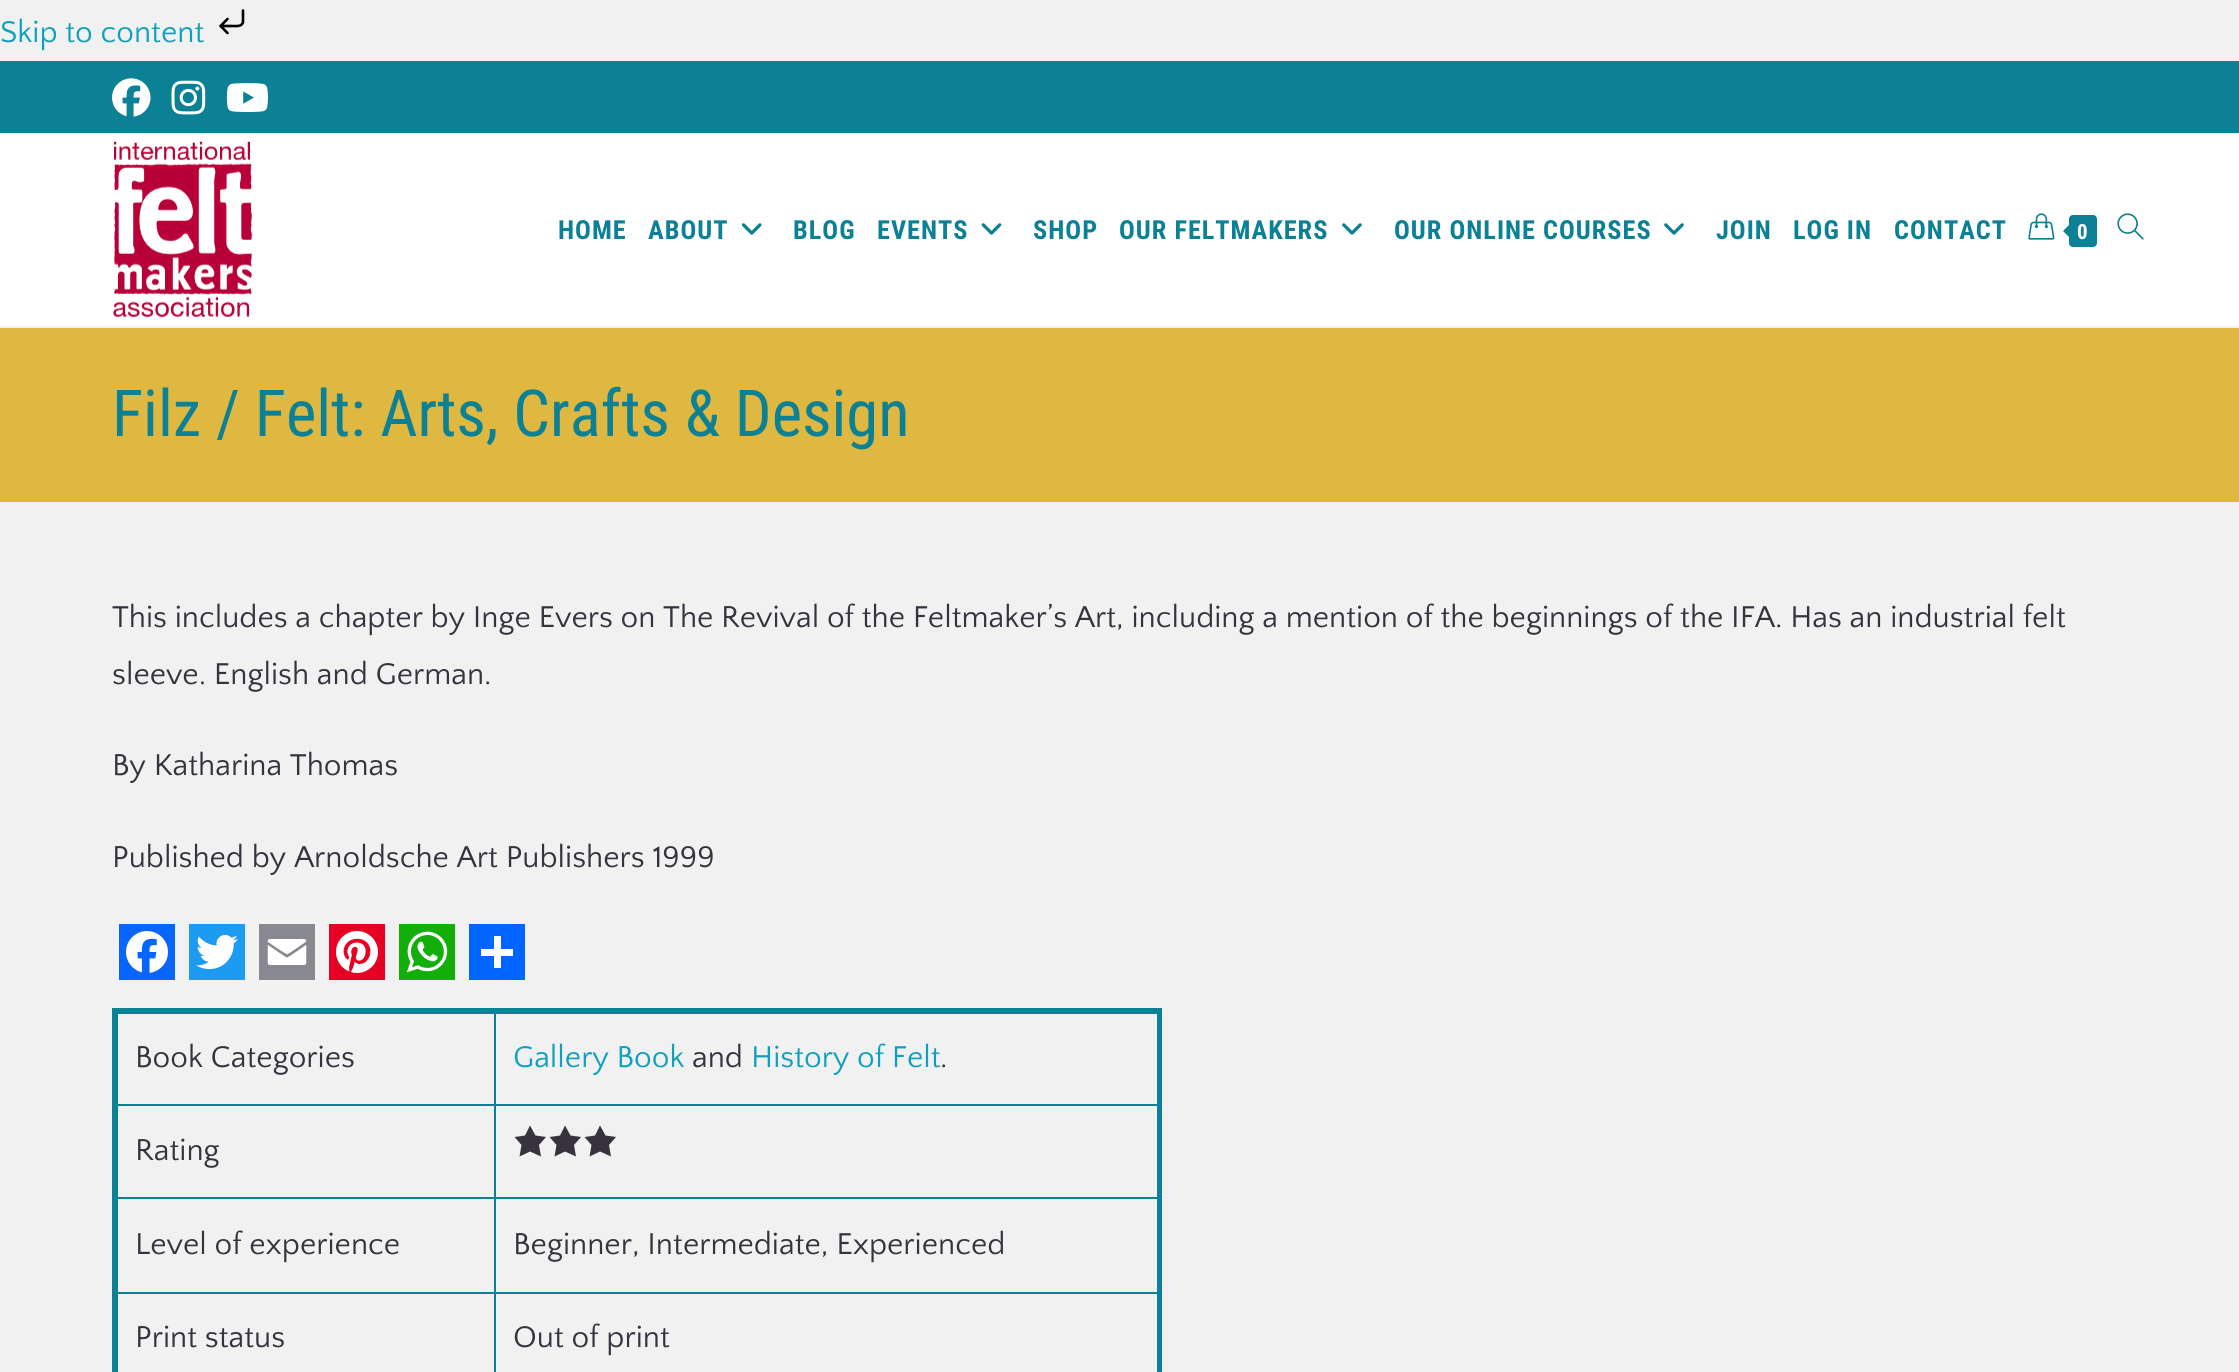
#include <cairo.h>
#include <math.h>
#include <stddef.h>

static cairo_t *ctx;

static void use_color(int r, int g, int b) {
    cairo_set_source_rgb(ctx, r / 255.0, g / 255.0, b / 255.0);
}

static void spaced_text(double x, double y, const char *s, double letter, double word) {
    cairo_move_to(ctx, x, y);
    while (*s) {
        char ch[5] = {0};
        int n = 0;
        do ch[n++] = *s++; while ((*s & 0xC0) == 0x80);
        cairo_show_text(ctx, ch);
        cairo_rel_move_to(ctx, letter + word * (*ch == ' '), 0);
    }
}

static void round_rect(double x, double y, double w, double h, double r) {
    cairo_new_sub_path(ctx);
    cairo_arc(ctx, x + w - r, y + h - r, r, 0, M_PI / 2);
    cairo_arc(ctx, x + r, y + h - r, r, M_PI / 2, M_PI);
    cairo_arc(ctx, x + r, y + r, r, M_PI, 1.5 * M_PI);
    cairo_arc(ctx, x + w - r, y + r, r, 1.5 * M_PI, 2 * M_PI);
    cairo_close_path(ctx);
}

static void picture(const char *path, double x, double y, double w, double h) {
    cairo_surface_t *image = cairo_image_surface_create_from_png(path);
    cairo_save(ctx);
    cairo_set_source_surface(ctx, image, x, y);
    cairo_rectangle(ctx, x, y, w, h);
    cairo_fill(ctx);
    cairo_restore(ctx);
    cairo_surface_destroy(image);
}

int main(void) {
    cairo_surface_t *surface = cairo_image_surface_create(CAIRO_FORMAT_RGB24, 2239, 1372);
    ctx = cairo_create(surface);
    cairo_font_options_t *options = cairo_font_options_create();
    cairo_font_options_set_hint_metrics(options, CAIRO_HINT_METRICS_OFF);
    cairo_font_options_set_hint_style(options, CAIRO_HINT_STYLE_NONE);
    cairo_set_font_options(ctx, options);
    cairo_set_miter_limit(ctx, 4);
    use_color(241, 241, 241);
    cairo_paint(ctx);
    cairo_select_font_face(ctx, "Quattrocento Sans", CAIRO_FONT_SLANT_NORMAL, CAIRO_FONT_WEIGHT_NORMAL);
    cairo_set_font_size(ctx, 31.5);
    use_color(15, 161, 187);
    cairo_move_to(ctx, 0, 42);
    cairo_show_text(ctx, "Skip to content");
    cairo_new_path(ctx);
    cairo_move_to(ctx, 243, 10.5);
    cairo_line_to(ctx, 243, 22);
    cairo_curve_to(ctx, 242, 27, 236, 26, 232, 26);
    cairo_line_to(ctx, 220.5, 26);
    cairo_move_to(ctx, 220.5, 26);
    cairo_line_to(ctx, 227.5, 19);
    cairo_move_to(ctx, 220.5, 26);
    cairo_line_to(ctx, 227.5, 33);
    use_color(0, 0, 0);
    cairo_set_line_width(ctx, 2.6);
    cairo_set_line_cap(ctx, CAIRO_LINE_CAP_ROUND);
    cairo_set_line_join(ctx, CAIRO_LINE_JOIN_ROUND);
    cairo_stroke(ctx);
    use_color(12, 128, 148);
    cairo_rectangle(ctx, 0, 61, 2239, 72);
    cairo_fill(ctx);
    picture("img1.png", 112, 78, 39, 39);
    picture("img2.png", 171, 80, 35, 35);
    picture("img3.png", 226, 83, 42, 29);
    use_color(255, 255, 255);
    cairo_rectangle(ctx, 0, 133, 2239, 193);
    cairo_fill(ctx);
    picture("img4.png", 113, 141, 139, 176);
    cairo_select_font_face(ctx, "Roboto Condensed", CAIRO_FONT_SLANT_NORMAL, CAIRO_FONT_WEIGHT_BOLD);
    cairo_set_font_size(ctx, 26.25);
    use_color(12, 128, 148);
    spaced_text(558, 239, "HOME", 1, 0);
    spaced_text(648, 239, "ABOUT", 1, 0);
    picture("img5.png", 741, 223, 21, 12);
    spaced_text(793, 239, "BLOG", 1, 0);
    spaced_text(877, 239, "EVENTS", 1, 0);
    picture("img6.png", 981, 223, 21, 12);
    spaced_text(1033, 239, "SHOP", 1, 0);
    spaced_text(1119, 239, "OUR FELTMAKERS", 1, 0);
    picture("img7.png", 1342, 223, 20, 12);
    spaced_text(1394, 239, "OUR ONLINE COURSES", 1, 0);
    picture("img7.png", 1664, 223, 20, 12);
    spaced_text(1716, 239, "JOIN", 1, 0);
    spaced_text(1793, 239, "LOG IN", 1, 0);
    spaced_text(1894, 239, "CONTACT", 1, 0);
    picture("img8.png", 2028, 213, 27, 27);
    round_rect(2069, 215, 28, 32, 4);
    cairo_fill(ctx);
    cairo_new_path(ctx);
    cairo_move_to(ctx, 2072, 222);
    cairo_line_to(ctx, 2072, 240);
    cairo_line_to(ctx, 2063, 231);
    cairo_close_path(ctx);
    cairo_fill(ctx);
    cairo_set_font_size(ctx, 21);
    use_color(255, 255, 255);
    cairo_move_to(ctx, 2077, 239);
    cairo_show_text(ctx, "0");
    picture("img9.png", 2117, 213, 27, 27);
    use_color(222, 184, 65);
    cairo_rectangle(ctx, 0, 328, 2239, 174);
    cairo_fill(ctx);
    cairo_select_font_face(ctx, "Roboto Condensed", CAIRO_FONT_SLANT_NORMAL, CAIRO_FONT_WEIGHT_NORMAL);
    cairo_set_font_size(ctx, 64.75);
    use_color(12, 128, 148);
    cairo_move_to(ctx, 112, 436);
    cairo_show_text(ctx, "Filz / Felt: Arts, Crafts & Design");
    cairo_select_font_face(ctx, "Quattrocento Sans", CAIRO_FONT_SLANT_NORMAL, CAIRO_FONT_WEIGHT_NORMAL);
    cairo_set_font_size(ctx, 31.5);
    use_color(55, 50, 62);
    cairo_move_to(ctx, 112, 627);
    cairo_show_text(ctx, "This includes a chapter by Inge Evers on The Revival of the Feltmaker’s Art, including a mention of the beginnings of the IFA. Has an industrial felt");
    cairo_move_to(ctx, 112, 684);
    cairo_show_text(ctx, "sleeve. English and German.");
    cairo_move_to(ctx, 112, 775);
    cairo_show_text(ctx, "By Katharina Thomas");
    cairo_move_to(ctx, 112, 867);
    cairo_show_text(ctx, "Published by Arnoldsche Art Publishers 1999");
    use_color(8, 102, 255);
    cairo_rectangle(ctx, 119, 924, 56, 56);
    cairo_fill(ctx);
    picture("img10.png", 126, 931, 42, 42);
    use_color(29, 155, 240);
    cairo_rectangle(ctx, 189, 924, 56, 56);
    cairo_fill(ctx);
    picture("img11.png", 196, 934, 42, 36);
    use_color(136, 137, 144);
    cairo_rectangle(ctx, 259, 924, 56, 56);
    cairo_fill(ctx);
    picture("img12.png", 267, 939, 40, 26);
    use_color(230, 0, 35);
    cairo_rectangle(ctx, 329, 924, 56, 56);
    cairo_fill(ctx);
    picture("img13.png", 336, 931, 42, 42);
    use_color(18, 175, 10);
    cairo_rectangle(ctx, 399, 924, 56, 56);
    cairo_fill(ctx);
    picture("img14.png", 407, 931, 41, 42);
    use_color(1, 102, 255);
    cairo_rectangle(ctx, 469, 924, 56, 56);
    cairo_fill(ctx);
    use_color(255, 255, 255);
    cairo_rectangle(ctx, 494, 936, 7, 32);
    cairo_fill(ctx);
    cairo_rectangle(ctx, 481, 949, 32, 7);
    cairo_fill(ctx);
    cairo_rectangle(ctx, 114, 1010, 1046, 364);
    use_color(12, 128, 148);
    cairo_set_line_width(ctx, 4);
    cairo_set_line_cap(ctx, CAIRO_LINE_CAP_BUTT);
    cairo_set_line_join(ctx, CAIRO_LINE_JOIN_MITER);
    cairo_stroke(ctx);
    cairo_rectangle(ctx, 494, 1012, 665, 2);
    cairo_fill(ctx);
    cairo_rectangle(ctx, 494, 1104, 665, 2);
    cairo_fill(ctx);
    cairo_rectangle(ctx, 494, 1197, 665, 2);
    cairo_fill(ctx);
    cairo_rectangle(ctx, 494, 1292, 665, 2);
    cairo_fill(ctx);
    cairo_rectangle(ctx, 494, 1292, 2, 80);
    cairo_fill(ctx);
    cairo_rectangle(ctx, 116, 1292, 379, 2);
    cairo_fill(ctx);
    cairo_rectangle(ctx, 494, 1197, 2, 96);
    cairo_fill(ctx);
    cairo_rectangle(ctx, 116, 1197, 379, 2);
    cairo_fill(ctx);
    cairo_rectangle(ctx, 494, 1104, 2, 95);
    cairo_fill(ctx);
    cairo_rectangle(ctx, 116, 1104, 379, 2);
    cairo_fill(ctx);
    cairo_rectangle(ctx, 494, 1012, 2, 94);
    cairo_fill(ctx);
    cairo_rectangle(ctx, 116, 1012, 379, 2);
    cairo_fill(ctx);
    cairo_rectangle(ctx, 116, 1292, 2, 80);
    cairo_fill(ctx);
    cairo_rectangle(ctx, 116, 1197, 2, 96);
    cairo_fill(ctx);
    cairo_rectangle(ctx, 116, 1104, 2, 95);
    cairo_fill(ctx);
    cairo_rectangle(ctx, 116, 1012, 2, 94);
    cairo_fill(ctx);
    use_color(55, 50, 62);
    cairo_move_to(ctx, 135, 1067);
    cairo_show_text(ctx, "Book Categories");
    use_color(12, 128, 148);
    cairo_rectangle(ctx, 1157, 1292, 1, 80);
    cairo_fill(ctx);
    cairo_rectangle(ctx, 1157, 1197, 1, 96);
    cairo_fill(ctx);
    cairo_rectangle(ctx, 1157, 1104, 1, 95);
    cairo_fill(ctx);
    cairo_rectangle(ctx, 1157, 1012, 1, 94);
    cairo_fill(ctx);
    use_color(15, 161, 187);
    cairo_move_to(ctx, 513, 1067);
    cairo_show_text(ctx, "Gallery Book");
    use_color(55, 50, 62);
    cairo_move_to(ctx, 692, 1067);
    cairo_show_text(ctx, "and");
    use_color(15, 161, 187);
    cairo_move_to(ctx, 751, 1067);
    cairo_show_text(ctx, "History of Felt");
    use_color(55, 50, 62);
    cairo_move_to(ctx, 940, 1067);
    cairo_show_text(ctx, ".");
    cairo_move_to(ctx, 135, 1160);
    cairo_show_text(ctx, "Rating");
    cairo_new_path(ctx);
    cairo_move_to(ctx, 530, 1125.5);
    cairo_line_to(ctx, 535.5, 1135.5);
    cairo_line_to(ctx, 546, 1137);
    cairo_line_to(ctx, 539, 1145);
    cairo_line_to(ctx, 541, 1156.5);
    cairo_line_to(ctx, 530, 1151.5);
    cairo_line_to(ctx, 519.5, 1156.5);
    cairo_line_to(ctx, 521.5, 1145);
    cairo_line_to(ctx, 514.5, 1137);
    cairo_line_to(ctx, 525, 1135.5);
    cairo_close_path(ctx);
    cairo_fill(ctx);
    cairo_new_path(ctx);
    cairo_move_to(ctx, 565, 1125.5);
    cairo_line_to(ctx, 570.5, 1135.5);
    cairo_line_to(ctx, 581, 1137);
    cairo_line_to(ctx, 574, 1145);
    cairo_line_to(ctx, 576, 1156.5);
    cairo_line_to(ctx, 565, 1151.5);
    cairo_line_to(ctx, 554.5, 1156.5);
    cairo_line_to(ctx, 556.5, 1145);
    cairo_line_to(ctx, 549.5, 1137);
    cairo_line_to(ctx, 560, 1135.5);
    cairo_close_path(ctx);
    cairo_fill(ctx);
    cairo_new_path(ctx);
    cairo_move_to(ctx, 600, 1125.5);
    cairo_line_to(ctx, 605.5, 1135.5);
    cairo_line_to(ctx, 616, 1137);
    cairo_line_to(ctx, 609, 1145);
    cairo_line_to(ctx, 611, 1156.5);
    cairo_line_to(ctx, 600, 1151.5);
    cairo_line_to(ctx, 589.5, 1156.5);
    cairo_line_to(ctx, 591.5, 1145);
    cairo_line_to(ctx, 584.5, 1137);
    cairo_line_to(ctx, 595, 1135.5);
    cairo_close_path(ctx);
    cairo_fill(ctx);
    cairo_move_to(ctx, 135, 1254);
    cairo_show_text(ctx, "Level of experience");
    cairo_move_to(ctx, 513, 1254);
    cairo_show_text(ctx, "Beginner, Intermediate, Experienced");
    cairo_move_to(ctx, 135, 1347);
    cairo_show_text(ctx, "Print status");
    cairo_move_to(ctx, 513, 1347);
    cairo_show_text(ctx, "Out of print");
    cairo_surface_write_to_png(surface, "result.png");
    cairo_font_options_destroy(options);
    cairo_destroy(ctx);
    cairo_surface_destroy(surface);
    return 0;
}
